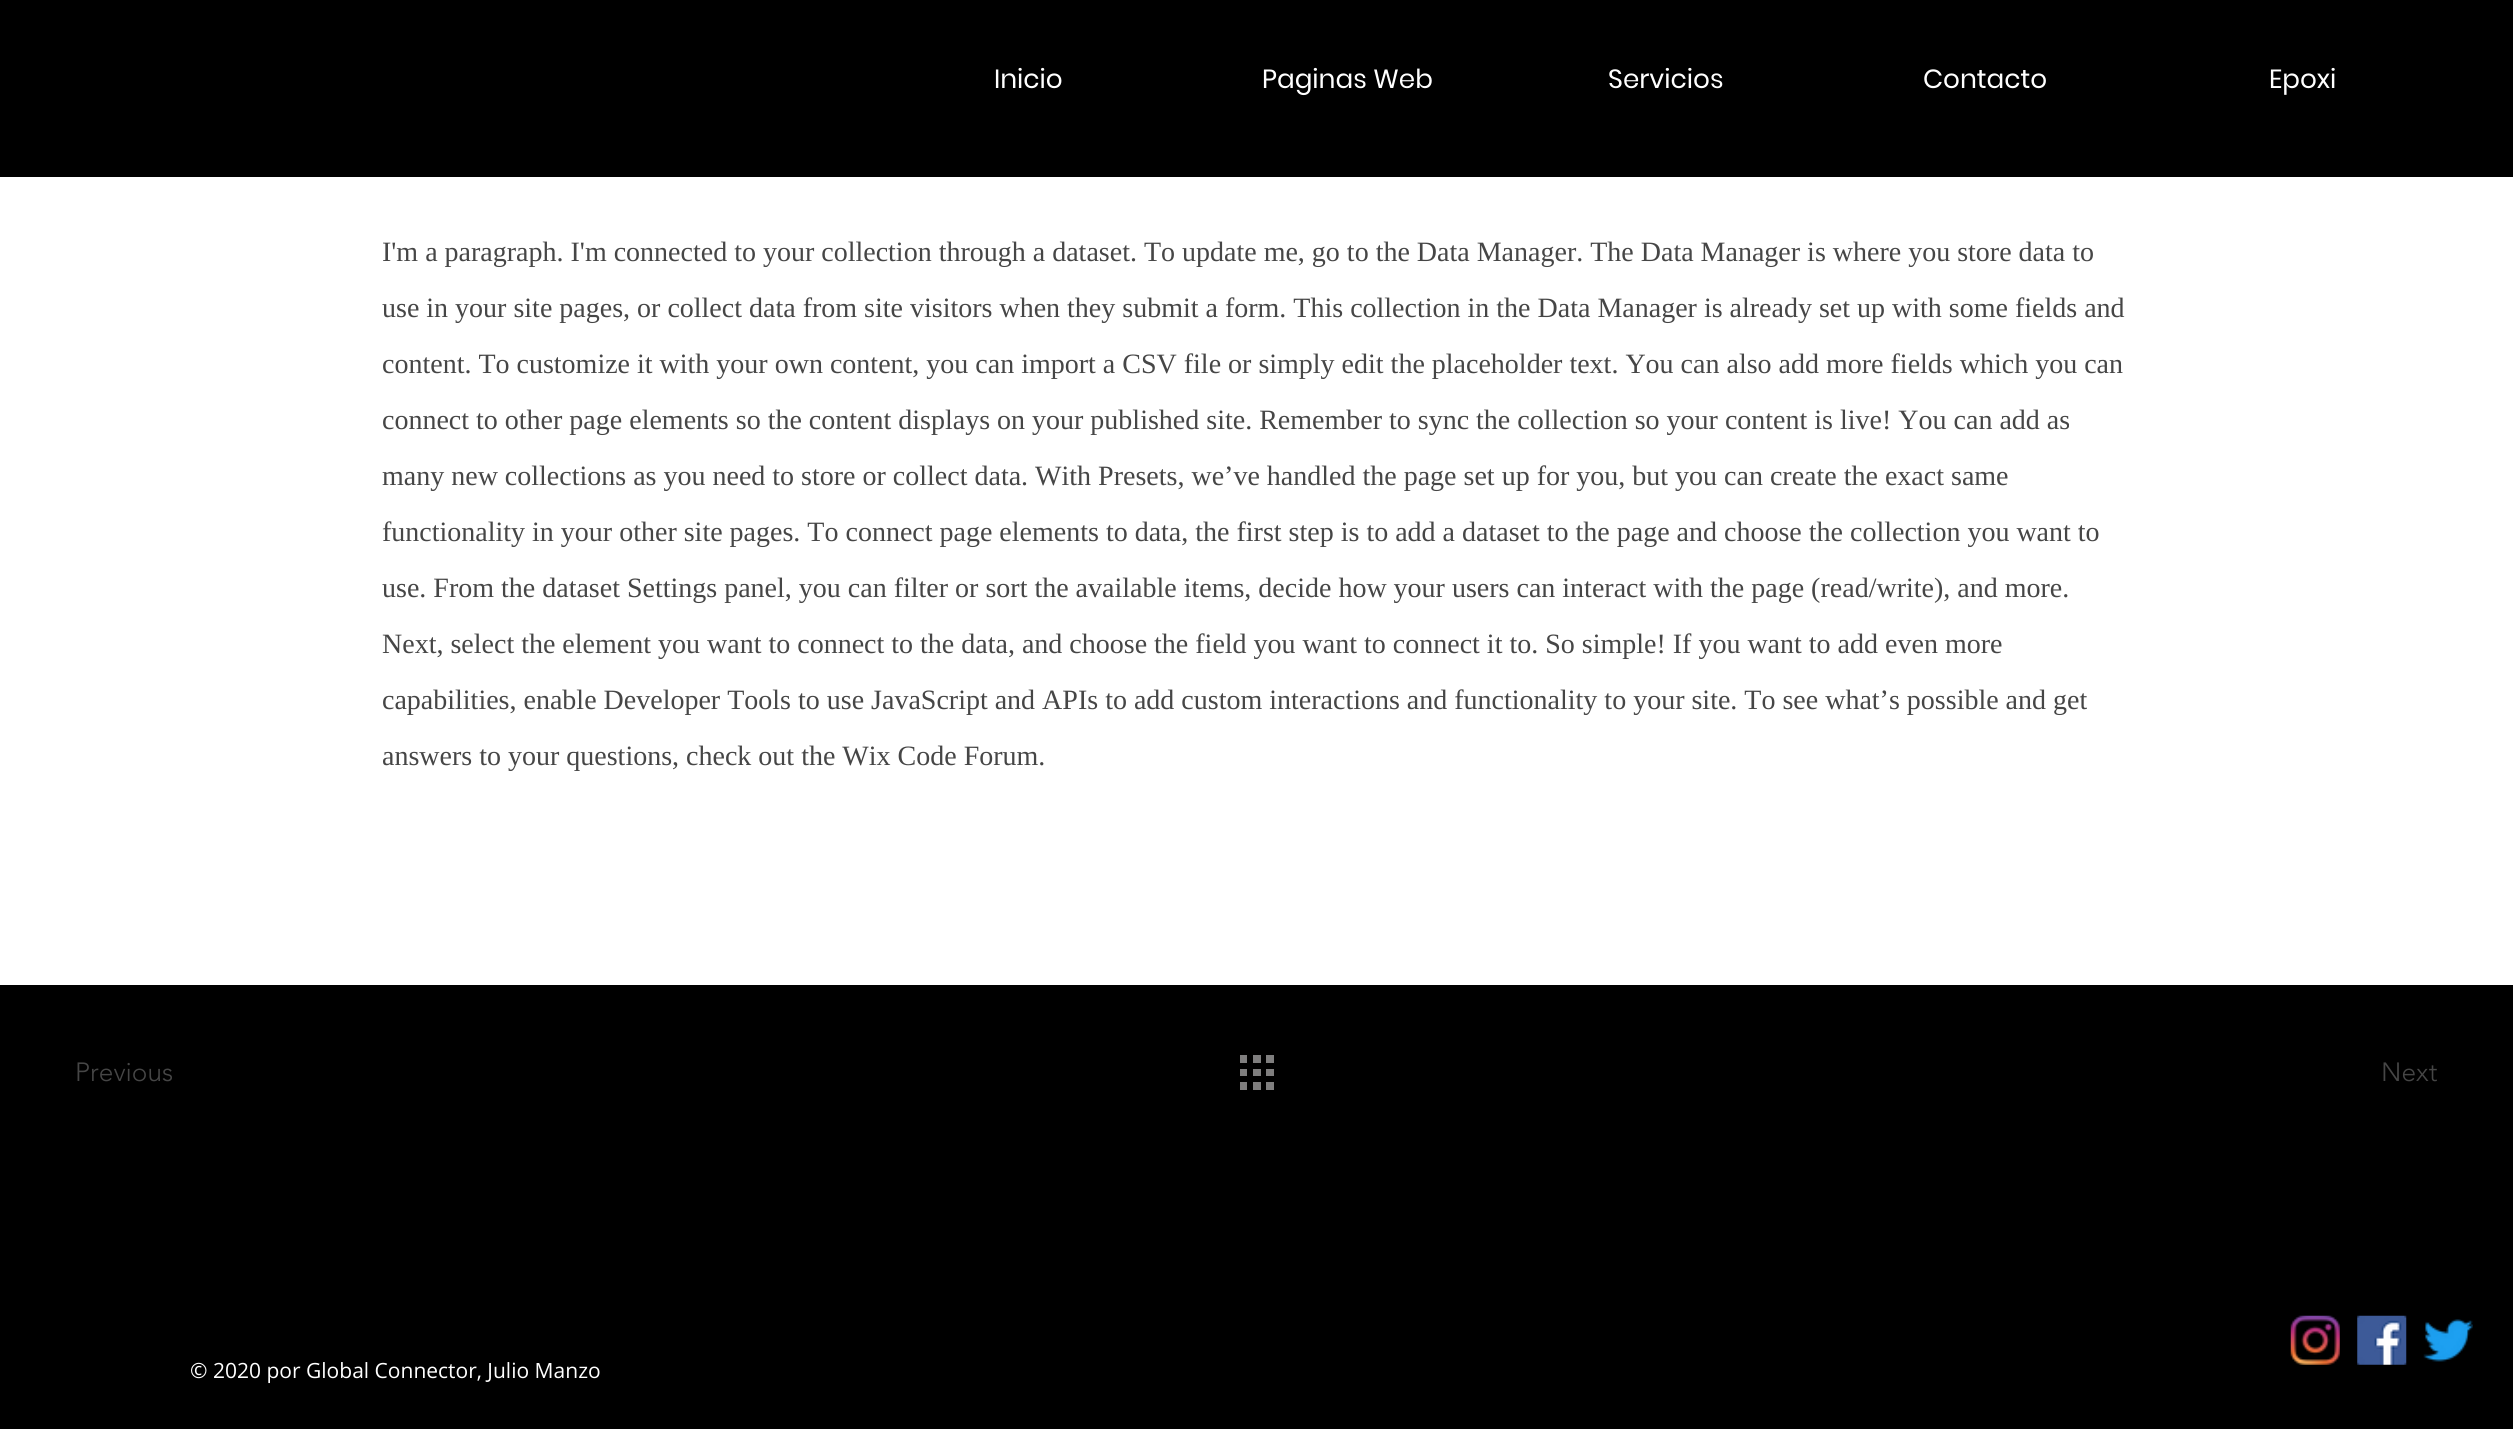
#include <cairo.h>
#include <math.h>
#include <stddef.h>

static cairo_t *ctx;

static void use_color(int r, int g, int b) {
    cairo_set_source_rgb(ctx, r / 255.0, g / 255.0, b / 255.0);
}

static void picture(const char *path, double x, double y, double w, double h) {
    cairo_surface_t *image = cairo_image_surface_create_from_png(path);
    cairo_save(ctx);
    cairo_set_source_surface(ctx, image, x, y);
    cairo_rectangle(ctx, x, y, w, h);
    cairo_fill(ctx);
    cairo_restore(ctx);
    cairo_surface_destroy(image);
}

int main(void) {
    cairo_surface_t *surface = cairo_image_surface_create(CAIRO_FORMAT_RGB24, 2513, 1429);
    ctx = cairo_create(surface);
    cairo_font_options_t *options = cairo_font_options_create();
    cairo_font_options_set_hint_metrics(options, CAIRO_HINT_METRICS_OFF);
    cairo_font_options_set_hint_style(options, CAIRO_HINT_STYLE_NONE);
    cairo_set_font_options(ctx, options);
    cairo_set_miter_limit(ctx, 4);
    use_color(255, 255, 255);
    cairo_paint(ctx);
    use_color(0, 0, 0);
    cairo_rectangle(ctx, 0, 0, 2513, 177);
    cairo_fill(ctx);
    cairo_select_font_face(ctx, "Poppins", CAIRO_FONT_SLANT_NORMAL, CAIRO_FONT_WEIGHT_NORMAL);
    cairo_set_font_size(ctx, 26.25);
    use_color(255, 255, 255);
    cairo_move_to(ctx, 994, 88);
    cairo_show_text(ctx, "Inicio");
    cairo_move_to(ctx, 1262, 88);
    cairo_show_text(ctx, "Paginas Web");
    cairo_move_to(ctx, 1608, 88);
    cairo_show_text(ctx, "Servicios");
    cairo_move_to(ctx, 1923, 88);
    cairo_show_text(ctx, "Contacto");
    cairo_move_to(ctx, 2269, 88);
    cairo_show_text(ctx, "Epoxi");
    cairo_select_font_face(ctx, "Liberation Serif", CAIRO_FONT_SLANT_NORMAL, CAIRO_FONT_WEIGHT_NORMAL);
    cairo_set_font_size(ctx, 28);
    use_color(70, 70, 70);
    cairo_move_to(ctx, 382, 261);
    cairo_show_text(ctx, "I'm a paragraph. I'm connected to your collection through a dataset. To update me, go to the Data Manager. The Data Manager is where you store data to");
    cairo_move_to(ctx, 382, 317);
    cairo_show_text(ctx, "use in your site pages, or collect data from site visitors when they submit a form. This collection in the Data Manager is already set up with some fields and");
    cairo_move_to(ctx, 382, 373);
    cairo_show_text(ctx, "content. To customize it with your own content, you can import a CSV file or simply edit the placeholder text. You can also add more fields which you can");
    cairo_move_to(ctx, 382, 429);
    cairo_show_text(ctx, "connect to other page elements so the content displays on your published site. Remember to sync the collection so your content is live! You can add as");
    cairo_move_to(ctx, 382, 485);
    cairo_show_text(ctx, "many new collections as you need to store or collect data. With Presets, we’ve handled the page set up for you, but you can create the exact same");
    cairo_move_to(ctx, 382, 541);
    cairo_show_text(ctx, "functionality in your other site pages. To connect page elements to data, the first step is to add a dataset to the page and choose the collection you want to");
    cairo_move_to(ctx, 382, 597);
    cairo_show_text(ctx, "use. From the dataset Settings panel, you can filter or sort the available items, decide how your users can interact with the page (read/write), and more.");
    cairo_move_to(ctx, 382, 653);
    cairo_show_text(ctx, "Next, select the element you want to connect to the data, and choose the field you want to connect it to. So simple! If you want to add even more");
    cairo_move_to(ctx, 382, 709);
    cairo_show_text(ctx, "capabilities, enable Developer Tools to use JavaScript and APIs to add custom interactions and functionality to your site. To see what’s possible and get");
    cairo_move_to(ctx, 382, 765);
    cairo_show_text(ctx, "answers to your questions, check out the Wix Code Forum.");
    use_color(0, 0, 0);
    cairo_rectangle(ctx, 0, 985, 2513, 444);
    cairo_fill(ctx);
    cairo_select_font_face(ctx, "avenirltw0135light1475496 Light", CAIRO_FONT_SLANT_NORMAL, CAIRO_FONT_WEIGHT_NORMAL);
    cairo_set_font_size(ctx, 26.25);
    use_color(70, 70, 70);
    cairo_move_to(ctx, 75, 1081);
    cairo_show_text(ctx, "Previous");
    picture("img1.png", 1240, 1055, 34, 35);
    cairo_move_to(ctx, 2381, 1081);
    cairo_show_text(ctx, "Next");
    picture("img2.png", 2290, 1315, 50, 50);
    picture("img3.png", 2357, 1315, 50, 50);
    picture("img4.png", 2423, 1319, 50, 43);
    cairo_select_font_face(ctx, "Open Sans", CAIRO_FONT_SLANT_NORMAL, CAIRO_FONT_WEIGHT_NORMAL);
    cairo_set_font_size(ctx, 21);
    use_color(255, 255, 255);
    cairo_move_to(ctx, 190, 1378);
    cairo_show_text(ctx, "© 2020 por Global Connector, Julio Manzo");
    cairo_surface_write_to_png(surface, "result.png");
    cairo_font_options_destroy(options);
    cairo_destroy(ctx);
    cairo_surface_destroy(surface);
    return 0;
}
